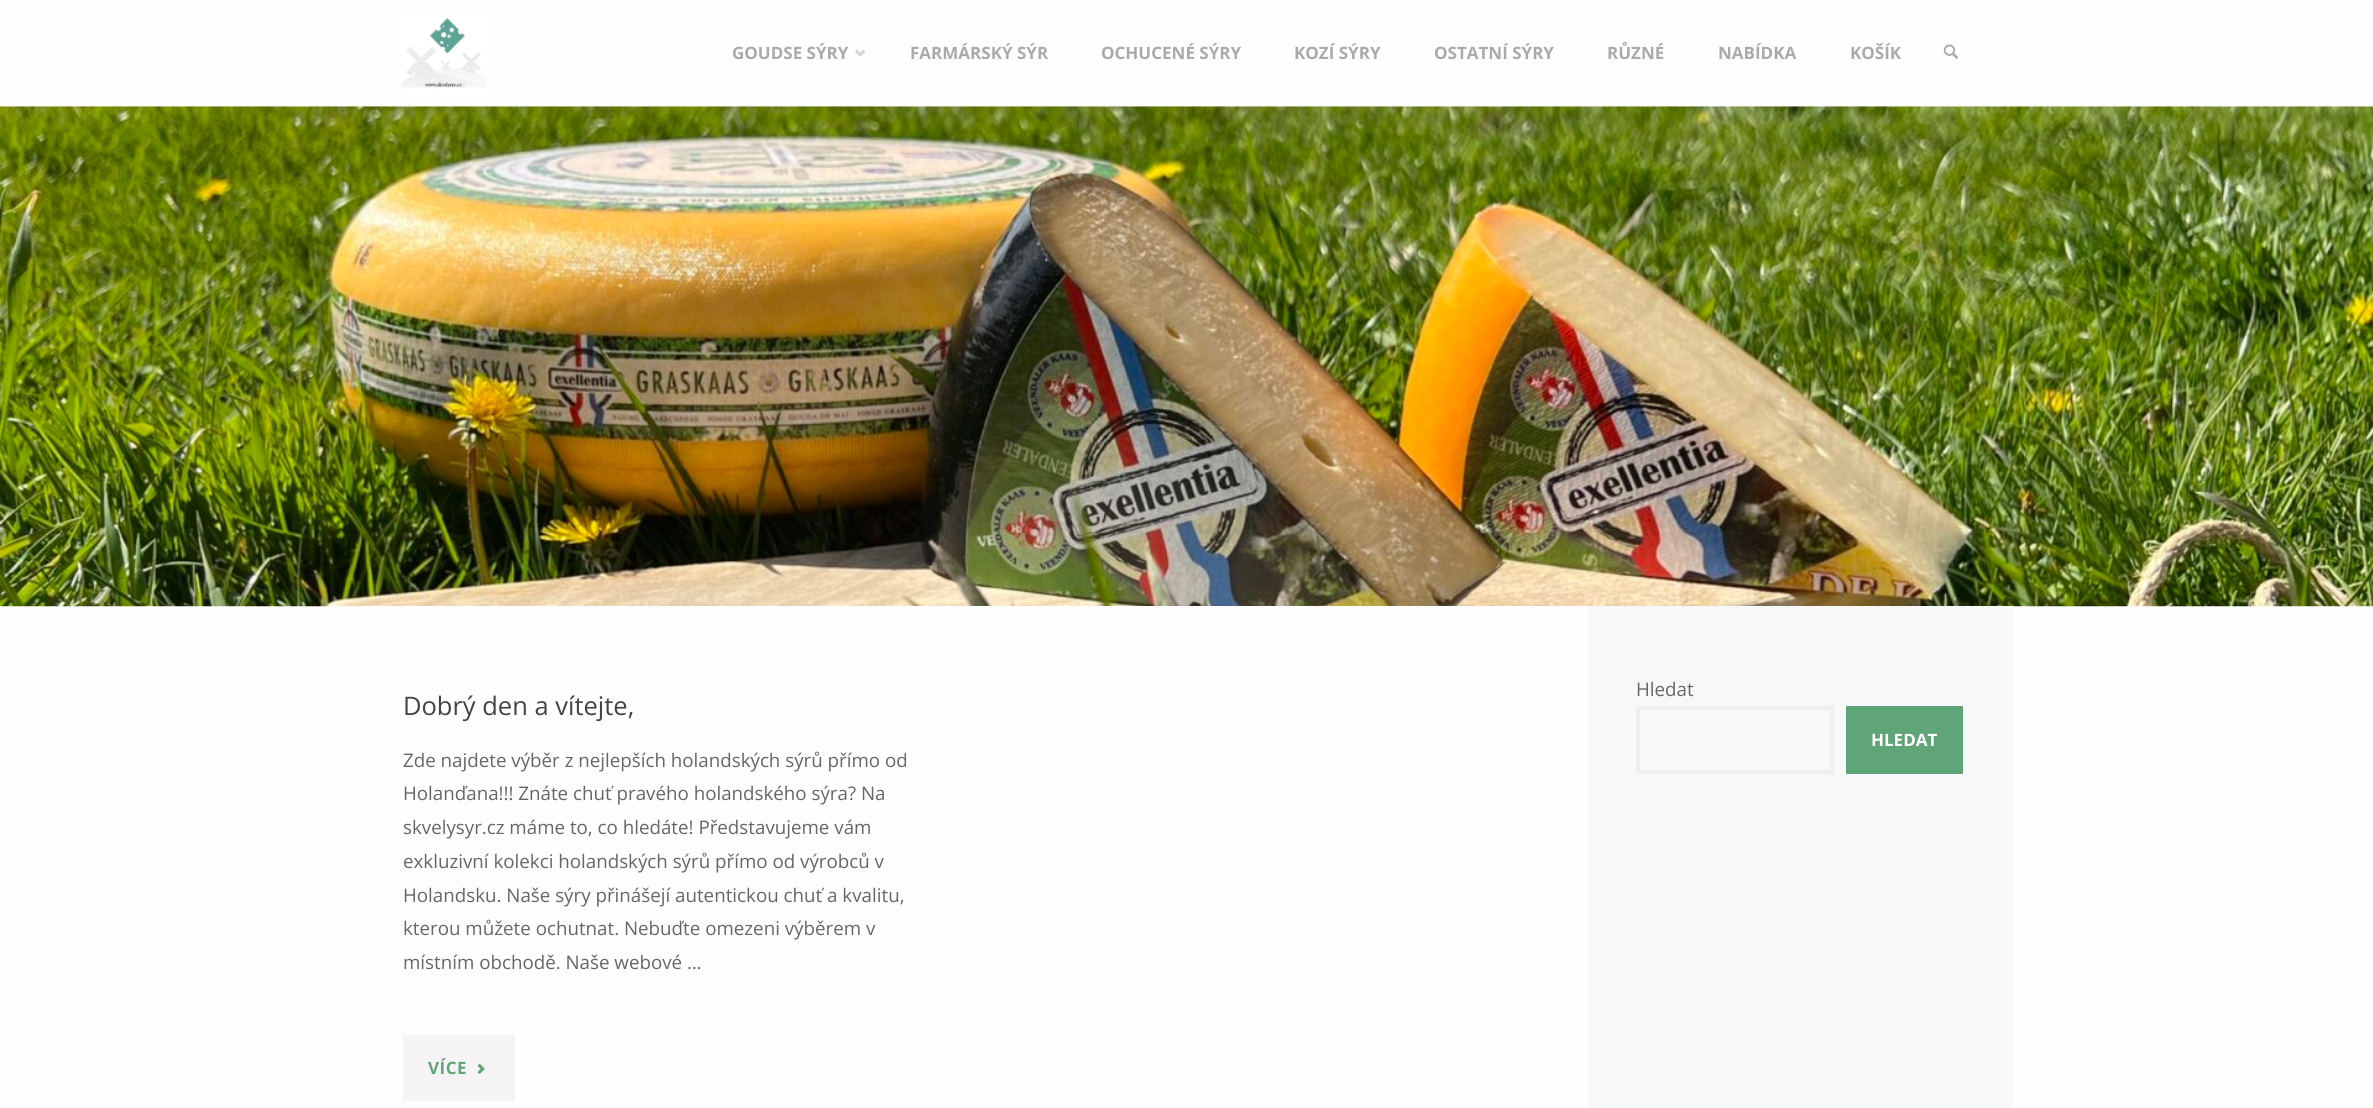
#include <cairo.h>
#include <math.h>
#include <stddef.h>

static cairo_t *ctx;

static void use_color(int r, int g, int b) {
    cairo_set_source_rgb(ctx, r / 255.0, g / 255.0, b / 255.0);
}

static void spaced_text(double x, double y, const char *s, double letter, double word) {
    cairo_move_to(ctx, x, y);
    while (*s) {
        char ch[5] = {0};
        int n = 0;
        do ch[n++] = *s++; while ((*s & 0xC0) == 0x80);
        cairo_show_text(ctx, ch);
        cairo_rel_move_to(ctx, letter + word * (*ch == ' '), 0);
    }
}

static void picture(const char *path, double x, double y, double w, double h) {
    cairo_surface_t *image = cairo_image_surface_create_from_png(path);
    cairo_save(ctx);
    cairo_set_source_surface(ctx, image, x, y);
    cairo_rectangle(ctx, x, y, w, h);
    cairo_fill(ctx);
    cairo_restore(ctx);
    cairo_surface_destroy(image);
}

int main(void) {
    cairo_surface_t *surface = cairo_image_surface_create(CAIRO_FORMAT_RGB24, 2373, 1108);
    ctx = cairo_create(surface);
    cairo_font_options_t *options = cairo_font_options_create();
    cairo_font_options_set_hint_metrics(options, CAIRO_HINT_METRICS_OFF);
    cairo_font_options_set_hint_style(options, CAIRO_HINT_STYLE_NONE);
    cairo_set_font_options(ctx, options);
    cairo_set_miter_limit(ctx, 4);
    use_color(255, 253, 255);
    cairo_paint(ctx);
    picture("img1.png", 400, 17, 87, 81);
    cairo_select_font_face(ctx, "Open Sans", CAIRO_FONT_SLANT_NORMAL, CAIRO_FONT_WEIGHT_BOLD);
    cairo_set_font_size(ctx, 17);
    use_color(170, 170, 170);
    cairo_move_to(ctx, 732, 59);
    cairo_show_text(ctx, "GOUDSE SÝRY");
    picture("img2.png", 855, 49, 11, 8);
    cairo_move_to(ctx, 910, 59);
    cairo_show_text(ctx, "FARMÁRSKÝ SÝR");
    cairo_move_to(ctx, 1101, 59);
    cairo_show_text(ctx, "OCHUCENÉ SÝRY");
    cairo_move_to(ctx, 1294, 59);
    cairo_show_text(ctx, "KOZÍ SÝRY");
    cairo_move_to(ctx, 1434, 59);
    cairo_show_text(ctx, "OSTATNÍ SÝRY");
    cairo_move_to(ctx, 1607, 59);
    cairo_show_text(ctx, "RŮZNÉ");
    cairo_move_to(ctx, 1718, 59);
    cairo_show_text(ctx, "NABÍDKA");
    cairo_move_to(ctx, 1850, 59);
    cairo_show_text(ctx, "KOŠÍK");
    picture("img3.png", 1943, 44, 16, 15);
    picture("img4.png", 0, 106, 2373, 501);
    use_color(255, 253, 255);
    cairo_rectangle(ctx, 363, 606, 1225, 1);
    cairo_fill(ctx);
    cairo_select_font_face(ctx, "Open Sans", CAIRO_FONT_SLANT_NORMAL, CAIRO_FONT_WEIGHT_NORMAL);
    cairo_set_font_size(ctx, 25.5);
    use_color(68, 68, 68);
    cairo_move_to(ctx, 403, 715);
    cairo_show_text(ctx, "Dobrý den a vítejte,");
    cairo_set_font_size(ctx, 18.75);
    use_color(102, 102, 102);
    cairo_move_to(ctx, 403, 767);
    cairo_show_text(ctx, "Zde najdete výběr z nejlepších holandských sýrů přímo od");
    cairo_move_to(ctx, 403, 800);
    cairo_show_text(ctx, "Holanďana!!! Znáte chuť pravého holandského sýra? Na");
    cairo_move_to(ctx, 403, 834);
    cairo_show_text(ctx, "skvelysyr.cz máme to, co hledáte! Představujeme vám");
    cairo_move_to(ctx, 403, 868);
    cairo_show_text(ctx, "exkluzivní kolekci holandských sýrů přímo od výrobců v");
    cairo_move_to(ctx, 403, 902);
    cairo_show_text(ctx, "Holandsku. Naše sýry přinášejí autentickou chuť a kvalitu,");
    cairo_move_to(ctx, 403, 935);
    cairo_show_text(ctx, "kterou můžete ochutnat. Nebuďte omezeni výběrem v");
    cairo_move_to(ctx, 403, 969);
    cairo_show_text(ctx, "místním obchodě. Naše webové …");
    use_color(245, 243, 245);
    cairo_rectangle(ctx, 403, 1035, 112, 66);
    cairo_fill(ctx);
    cairo_select_font_face(ctx, "Open Sans", CAIRO_FONT_SLANT_NORMAL, CAIRO_FONT_WEIGHT_BOLD);
    cairo_set_font_size(ctx, 17);
    use_color(96, 165, 119);
    spaced_text(428, 1074, "VÍCE", 0.5, 0);
    picture("img5.png", 477, 1063, 8, 11);
    use_color(247, 248, 249);
    cairo_rectangle(ctx, 1588, 606, 425, 502);
    cairo_fill(ctx);
    cairo_select_font_face(ctx, "Open Sans", CAIRO_FONT_SLANT_NORMAL, CAIRO_FONT_WEIGHT_NORMAL);
    cairo_set_font_size(ctx, 18.75);
    use_color(102, 102, 102);
    cairo_move_to(ctx, 1636, 696);
    cairo_show_text(ctx, "Hledat");
    cairo_rectangle(ctx, 1638, 708, 194, 64);
    use_color(240, 238, 240);
    cairo_set_line_width(ctx, 4);
    cairo_stroke(ctx);
    use_color(96, 165, 119);
    cairo_rectangle(ctx, 1846, 706, 117, 68);
    cairo_fill(ctx);
    cairo_select_font_face(ctx, "Open Sans", CAIRO_FONT_SLANT_NORMAL, CAIRO_FONT_WEIGHT_BOLD);
    cairo_set_font_size(ctx, 17);
    use_color(255, 253, 255);
    cairo_move_to(ctx, 1871, 746);
    cairo_show_text(ctx, "HLEDAT");
    cairo_surface_write_to_png(surface, "result.png");
    cairo_font_options_destroy(options);
    cairo_destroy(ctx);
    cairo_surface_destroy(surface);
    return 0;
}
